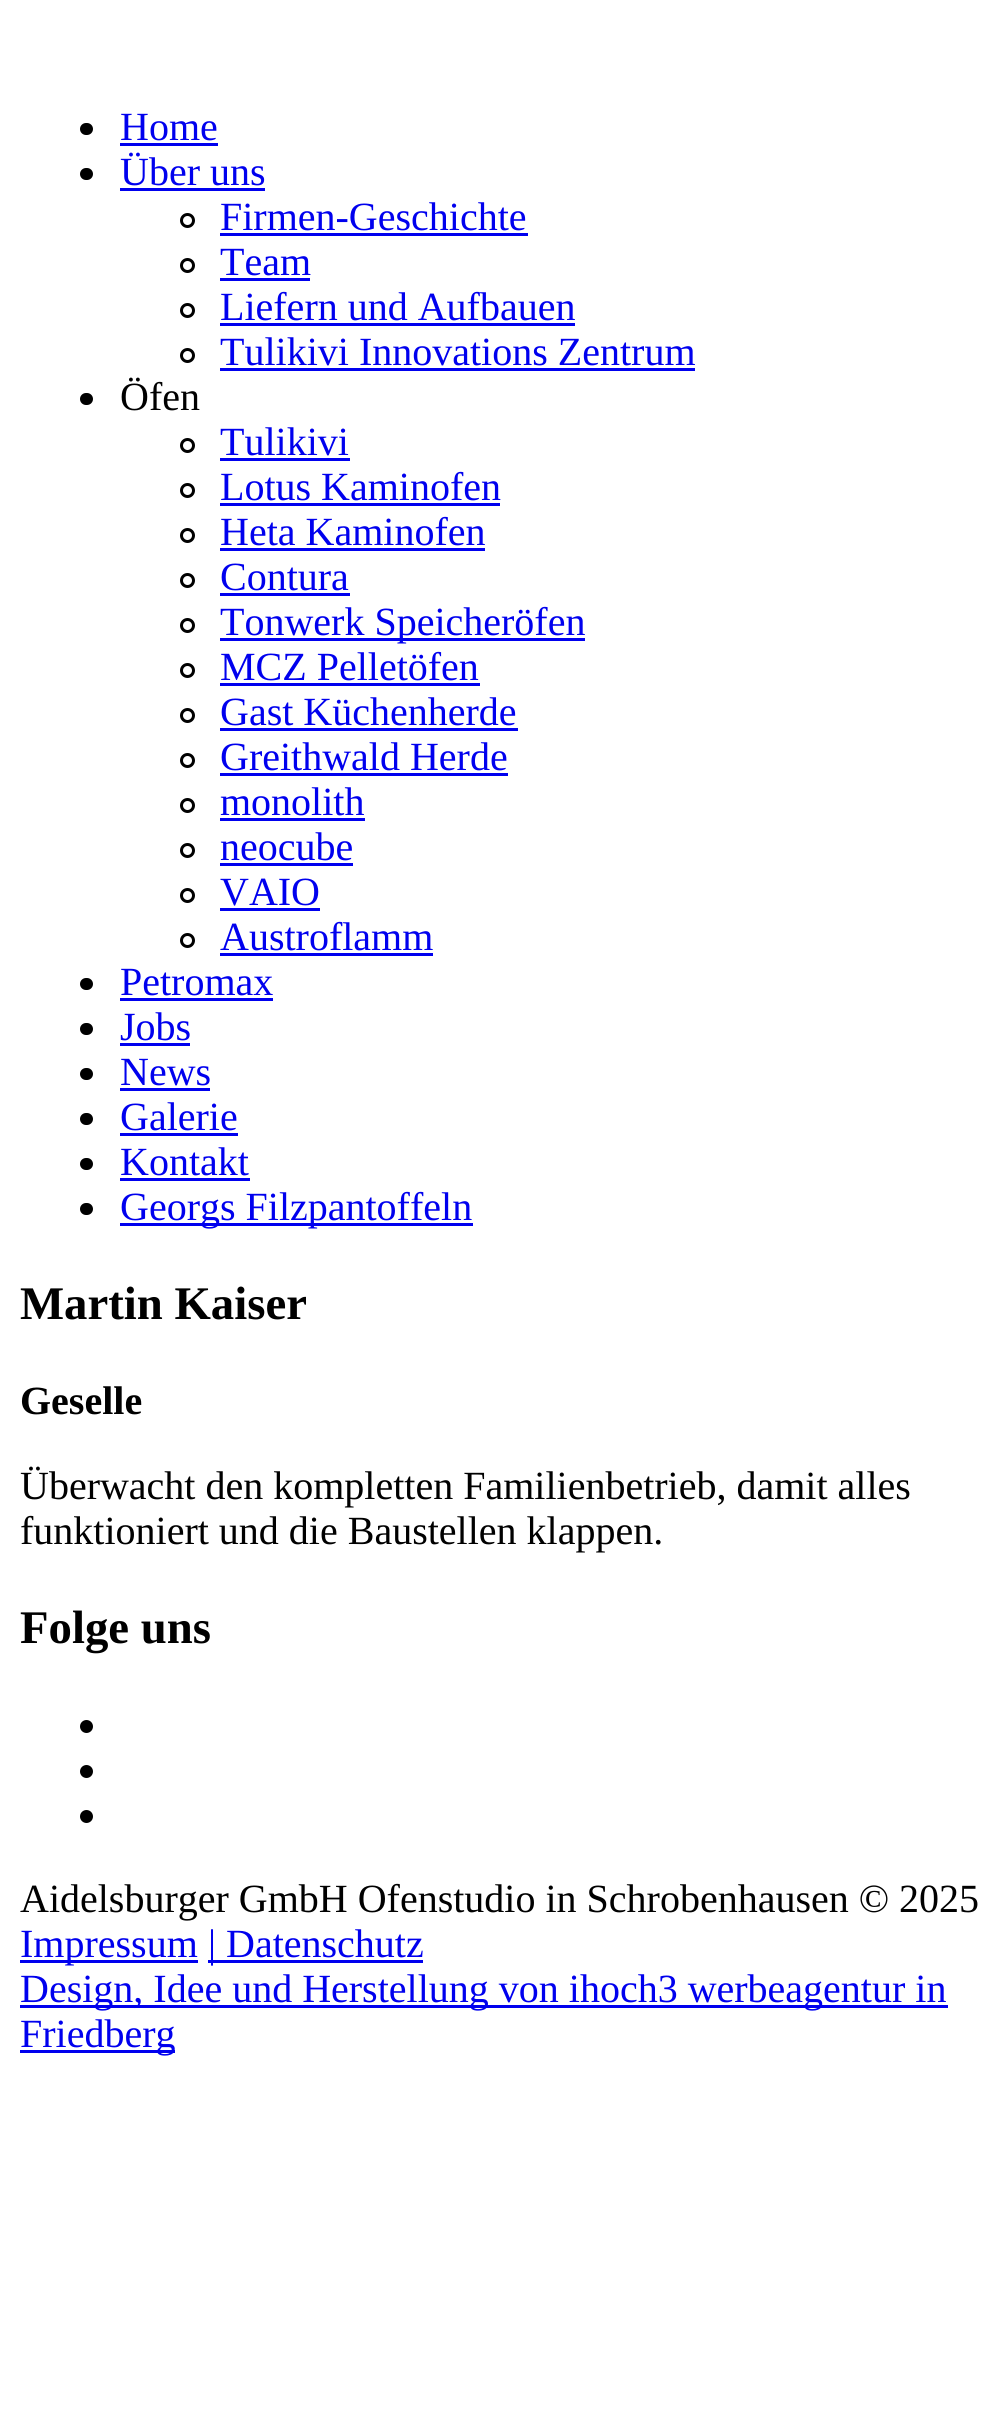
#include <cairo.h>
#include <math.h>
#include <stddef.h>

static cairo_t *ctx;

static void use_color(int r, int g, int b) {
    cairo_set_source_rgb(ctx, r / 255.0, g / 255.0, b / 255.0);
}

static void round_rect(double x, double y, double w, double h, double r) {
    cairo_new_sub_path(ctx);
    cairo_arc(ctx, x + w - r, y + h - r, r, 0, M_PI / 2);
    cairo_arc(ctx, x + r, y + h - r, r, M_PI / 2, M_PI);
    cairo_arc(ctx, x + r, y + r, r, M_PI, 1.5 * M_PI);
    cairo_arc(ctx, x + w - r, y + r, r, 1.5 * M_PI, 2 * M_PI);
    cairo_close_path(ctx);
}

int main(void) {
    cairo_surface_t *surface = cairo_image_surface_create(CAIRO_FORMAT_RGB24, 1000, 2416);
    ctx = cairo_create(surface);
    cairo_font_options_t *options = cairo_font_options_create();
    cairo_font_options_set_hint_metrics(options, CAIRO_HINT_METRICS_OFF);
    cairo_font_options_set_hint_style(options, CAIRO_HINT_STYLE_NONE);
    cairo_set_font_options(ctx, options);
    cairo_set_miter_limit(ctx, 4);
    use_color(255, 255, 255);
    cairo_paint(ctx);
    use_color(0, 0, 0);
    round_rect(80, 123, 13, 12, 6);
    cairo_fill(ctx);
    cairo_select_font_face(ctx, "Liberation Serif", CAIRO_FONT_SLANT_NORMAL, CAIRO_FONT_WEIGHT_NORMAL);
    cairo_set_font_size(ctx, 40);
    use_color(0, 0, 238);
    cairo_move_to(ctx, 120, 140);
    cairo_show_text(ctx, "Home");
    cairo_rectangle(ctx, 120, 143, 98, 3);
    cairo_fill(ctx);
    use_color(0, 0, 0);
    round_rect(80, 168, 13, 12, 6);
    cairo_fill(ctx);
    use_color(0, 0, 238);
    cairo_move_to(ctx, 120, 185);
    cairo_show_text(ctx, "Über uns");
    cairo_rectangle(ctx, 120, 188, 145, 3);
    cairo_fill(ctx);
    cairo_arc(ctx, 187.5, 220.5, 6, 0, 2 * M_PI);
    use_color(0, 0, 0);
    cairo_set_line_width(ctx, 3);
    cairo_stroke(ctx);
    use_color(0, 0, 238);
    cairo_move_to(ctx, 220, 230);
    cairo_show_text(ctx, "Firmen-Geschichte");
    cairo_rectangle(ctx, 220, 233, 308, 3);
    cairo_fill(ctx);
    cairo_arc(ctx, 187.5, 265.5, 6, 0, 2 * M_PI);
    use_color(0, 0, 0);
    cairo_stroke(ctx);
    use_color(0, 0, 238);
    cairo_move_to(ctx, 220, 275);
    cairo_show_text(ctx, "Team");
    cairo_rectangle(ctx, 220, 278, 90, 3);
    cairo_fill(ctx);
    cairo_arc(ctx, 187.5, 310.5, 6, 0, 2 * M_PI);
    use_color(0, 0, 0);
    cairo_stroke(ctx);
    use_color(0, 0, 238);
    cairo_move_to(ctx, 220, 320);
    cairo_show_text(ctx, "Liefern und Aufbauen");
    cairo_rectangle(ctx, 220, 323, 355, 3);
    cairo_fill(ctx);
    cairo_arc(ctx, 187.5, 355.5, 6, 0, 2 * M_PI);
    use_color(0, 0, 0);
    cairo_stroke(ctx);
    use_color(0, 0, 238);
    cairo_move_to(ctx, 220, 365);
    cairo_show_text(ctx, "Tulikivi Innovations Zentrum");
    cairo_rectangle(ctx, 220, 368, 475, 3);
    cairo_fill(ctx);
    use_color(0, 0, 0);
    round_rect(80, 393, 13, 12, 6);
    cairo_fill(ctx);
    cairo_move_to(ctx, 120, 410);
    cairo_show_text(ctx, "Öfen");
    cairo_new_path(ctx);
    cairo_arc(ctx, 187.5, 445.5, 6, 0, 2 * M_PI);
    cairo_stroke(ctx);
    use_color(0, 0, 238);
    cairo_move_to(ctx, 220, 455);
    cairo_show_text(ctx, "Tulikivi");
    cairo_rectangle(ctx, 220, 458, 130, 3);
    cairo_fill(ctx);
    cairo_arc(ctx, 187.5, 490.5, 6, 0, 2 * M_PI);
    use_color(0, 0, 0);
    cairo_stroke(ctx);
    use_color(0, 0, 238);
    cairo_move_to(ctx, 220, 500);
    cairo_show_text(ctx, "Lotus Kaminofen");
    cairo_rectangle(ctx, 220, 503, 280, 3);
    cairo_fill(ctx);
    cairo_arc(ctx, 187.5, 535.5, 6, 0, 2 * M_PI);
    use_color(0, 0, 0);
    cairo_stroke(ctx);
    use_color(0, 0, 238);
    cairo_move_to(ctx, 220, 545);
    cairo_show_text(ctx, "Heta Kaminofen");
    cairo_rectangle(ctx, 220, 548, 265, 3);
    cairo_fill(ctx);
    cairo_arc(ctx, 187.5, 580.5, 6, 0, 2 * M_PI);
    use_color(0, 0, 0);
    cairo_stroke(ctx);
    use_color(0, 0, 238);
    cairo_move_to(ctx, 220, 590);
    cairo_show_text(ctx, "Contura");
    cairo_rectangle(ctx, 220, 593, 130, 3);
    cairo_fill(ctx);
    cairo_arc(ctx, 187.5, 625.5, 6, 0, 2 * M_PI);
    use_color(0, 0, 0);
    cairo_stroke(ctx);
    use_color(0, 0, 238);
    cairo_rectangle(ctx, 220, 638, 365, 3);
    cairo_fill(ctx);
    cairo_move_to(ctx, 220, 635);
    cairo_show_text(ctx, "Tonwerk Speicheröfen");
    cairo_new_path(ctx);
    cairo_arc(ctx, 187.5, 670.5, 6, 0, 2 * M_PI);
    use_color(0, 0, 0);
    cairo_stroke(ctx);
    use_color(0, 0, 238);
    cairo_move_to(ctx, 220, 680);
    cairo_show_text(ctx, "MCZ Pelletöfen");
    cairo_rectangle(ctx, 220, 683, 260, 3);
    cairo_fill(ctx);
    cairo_arc(ctx, 187.5, 715.5, 6, 0, 2 * M_PI);
    use_color(0, 0, 0);
    cairo_stroke(ctx);
    use_color(0, 0, 238);
    cairo_move_to(ctx, 220, 725);
    cairo_show_text(ctx, "Gast Küchenherde");
    cairo_rectangle(ctx, 220, 728, 298, 3);
    cairo_fill(ctx);
    cairo_arc(ctx, 187.5, 760.5, 6, 0, 2 * M_PI);
    use_color(0, 0, 0);
    cairo_stroke(ctx);
    use_color(0, 0, 238);
    cairo_move_to(ctx, 220, 770);
    cairo_show_text(ctx, "Greithwald Herde");
    cairo_rectangle(ctx, 220, 773, 288, 3);
    cairo_fill(ctx);
    cairo_arc(ctx, 187.5, 805.5, 6, 0, 2 * M_PI);
    use_color(0, 0, 0);
    cairo_stroke(ctx);
    use_color(0, 0, 238);
    cairo_move_to(ctx, 220, 815);
    cairo_show_text(ctx, "monolith");
    cairo_rectangle(ctx, 220, 818, 145, 3);
    cairo_fill(ctx);
    cairo_arc(ctx, 187.5, 850.5, 6, 0, 2 * M_PI);
    use_color(0, 0, 0);
    cairo_stroke(ctx);
    use_color(0, 0, 238);
    cairo_move_to(ctx, 220, 860);
    cairo_show_text(ctx, "neocube");
    cairo_rectangle(ctx, 220, 863, 133, 3);
    cairo_fill(ctx);
    cairo_arc(ctx, 187.5, 895.5, 6, 0, 2 * M_PI);
    use_color(0, 0, 0);
    cairo_stroke(ctx);
    use_color(0, 0, 238);
    cairo_move_to(ctx, 220, 905);
    cairo_show_text(ctx, "VAIO");
    cairo_rectangle(ctx, 220, 908, 100, 3);
    cairo_fill(ctx);
    cairo_arc(ctx, 187.5, 940.5, 6, 0, 2 * M_PI);
    use_color(0, 0, 0);
    cairo_stroke(ctx);
    use_color(0, 0, 238);
    cairo_move_to(ctx, 220, 950);
    cairo_show_text(ctx, "Austroflamm");
    cairo_rectangle(ctx, 220, 953, 213, 3);
    cairo_fill(ctx);
    use_color(0, 0, 0);
    round_rect(80, 978, 13, 12, 6);
    cairo_fill(ctx);
    use_color(0, 0, 238);
    cairo_move_to(ctx, 120, 995);
    cairo_show_text(ctx, "Petromax");
    cairo_rectangle(ctx, 120, 998, 153, 3);
    cairo_fill(ctx);
    use_color(0, 0, 0);
    round_rect(80, 1023, 13, 12, 6);
    cairo_fill(ctx);
    use_color(0, 0, 238);
    cairo_move_to(ctx, 120, 1040);
    cairo_show_text(ctx, "Jobs");
    cairo_rectangle(ctx, 120, 1043, 70, 3);
    cairo_fill(ctx);
    use_color(0, 0, 0);
    round_rect(80, 1068, 13, 12, 6);
    cairo_fill(ctx);
    use_color(0, 0, 238);
    cairo_move_to(ctx, 120, 1085);
    cairo_show_text(ctx, "News");
    cairo_rectangle(ctx, 120, 1088, 90, 3);
    cairo_fill(ctx);
    use_color(0, 0, 0);
    round_rect(80, 1113, 13, 12, 6);
    cairo_fill(ctx);
    use_color(0, 0, 238);
    cairo_move_to(ctx, 120, 1130);
    cairo_show_text(ctx, "Galerie");
    cairo_rectangle(ctx, 120, 1133, 118, 3);
    cairo_fill(ctx);
    use_color(0, 0, 0);
    round_rect(80, 1158, 13, 12, 6);
    cairo_fill(ctx);
    use_color(0, 0, 238);
    cairo_move_to(ctx, 120, 1175);
    cairo_show_text(ctx, "Kontakt");
    cairo_rectangle(ctx, 120, 1178, 130, 3);
    cairo_fill(ctx);
    use_color(0, 0, 0);
    round_rect(80, 1203, 13, 12, 6);
    cairo_fill(ctx);
    use_color(0, 0, 238);
    cairo_rectangle(ctx, 120, 1223, 353, 3);
    cairo_fill(ctx);
    cairo_move_to(ctx, 120, 1220);
    cairo_show_text(ctx, "Georgs Filzpantoffeln");
    cairo_select_font_face(ctx, "Liberation Serif", CAIRO_FONT_SLANT_NORMAL, CAIRO_FONT_WEIGHT_BOLD);
    cairo_set_font_size(ctx, 46.75);
    use_color(0, 0, 0);
    cairo_move_to(ctx, 20, 1319);
    cairo_show_text(ctx, "Martin Kaiser");
    cairo_set_font_size(ctx, 40);
    cairo_move_to(ctx, 20, 1414);
    cairo_show_text(ctx, "Geselle");
    cairo_select_font_face(ctx, "Liberation Serif", CAIRO_FONT_SLANT_NORMAL, CAIRO_FONT_WEIGHT_NORMAL);
    cairo_move_to(ctx, 20, 1499);
    cairo_show_text(ctx, "Überwacht den kompletten Familienbetrieb, damit alles");
    cairo_move_to(ctx, 20, 1544);
    cairo_show_text(ctx, "funktioniert und die Baustellen klappen.");
    cairo_select_font_face(ctx, "Liberation Serif", CAIRO_FONT_SLANT_NORMAL, CAIRO_FONT_WEIGHT_BOLD);
    cairo_set_font_size(ctx, 46.75);
    cairo_move_to(ctx, 20, 1643);
    cairo_show_text(ctx, "Folge uns");
    cairo_new_path(ctx);
    cairo_arc(ctx, 86.5, 1726.5, 6.5, 0, 2 * M_PI);
    cairo_fill(ctx);
    cairo_arc(ctx, 86.5, 1771.5, 6.5, 0, 2 * M_PI);
    cairo_fill(ctx);
    cairo_arc(ctx, 86.5, 1816.5, 6.5, 0, 2 * M_PI);
    cairo_fill(ctx);
    cairo_select_font_face(ctx, "Liberation Serif", CAIRO_FONT_SLANT_NORMAL, CAIRO_FONT_WEIGHT_NORMAL);
    cairo_set_font_size(ctx, 40);
    cairo_move_to(ctx, 20, 1912);
    cairo_show_text(ctx, "Aidelsburger GmbH Ofenstudio in Schrobenhausen © 2025");
    use_color(0, 0, 238);
    cairo_rectangle(ctx, 20, 1960, 178, 3);
    cairo_fill(ctx);
    cairo_move_to(ctx, 20, 1957);
    cairo_show_text(ctx, "Impressum");
    cairo_rectangle(ctx, 208, 1960, 215, 3);
    cairo_fill(ctx);
    cairo_move_to(ctx, 208, 1957);
    cairo_show_text(ctx, "| Datenschutz");
    cairo_rectangle(ctx, 20, 2005, 928, 3);
    cairo_fill(ctx);
    cairo_move_to(ctx, 20, 2002);
    cairo_show_text(ctx, "Design, Idee und Herstellung von ihoch3 werbeagentur in");
    cairo_rectangle(ctx, 20, 2050, 155, 3);
    cairo_fill(ctx);
    cairo_move_to(ctx, 20, 2047);
    cairo_show_text(ctx, "Friedberg");
    cairo_surface_write_to_png(surface, "result.png");
    cairo_font_options_destroy(options);
    cairo_destroy(ctx);
    cairo_surface_destroy(surface);
    return 0;
}
